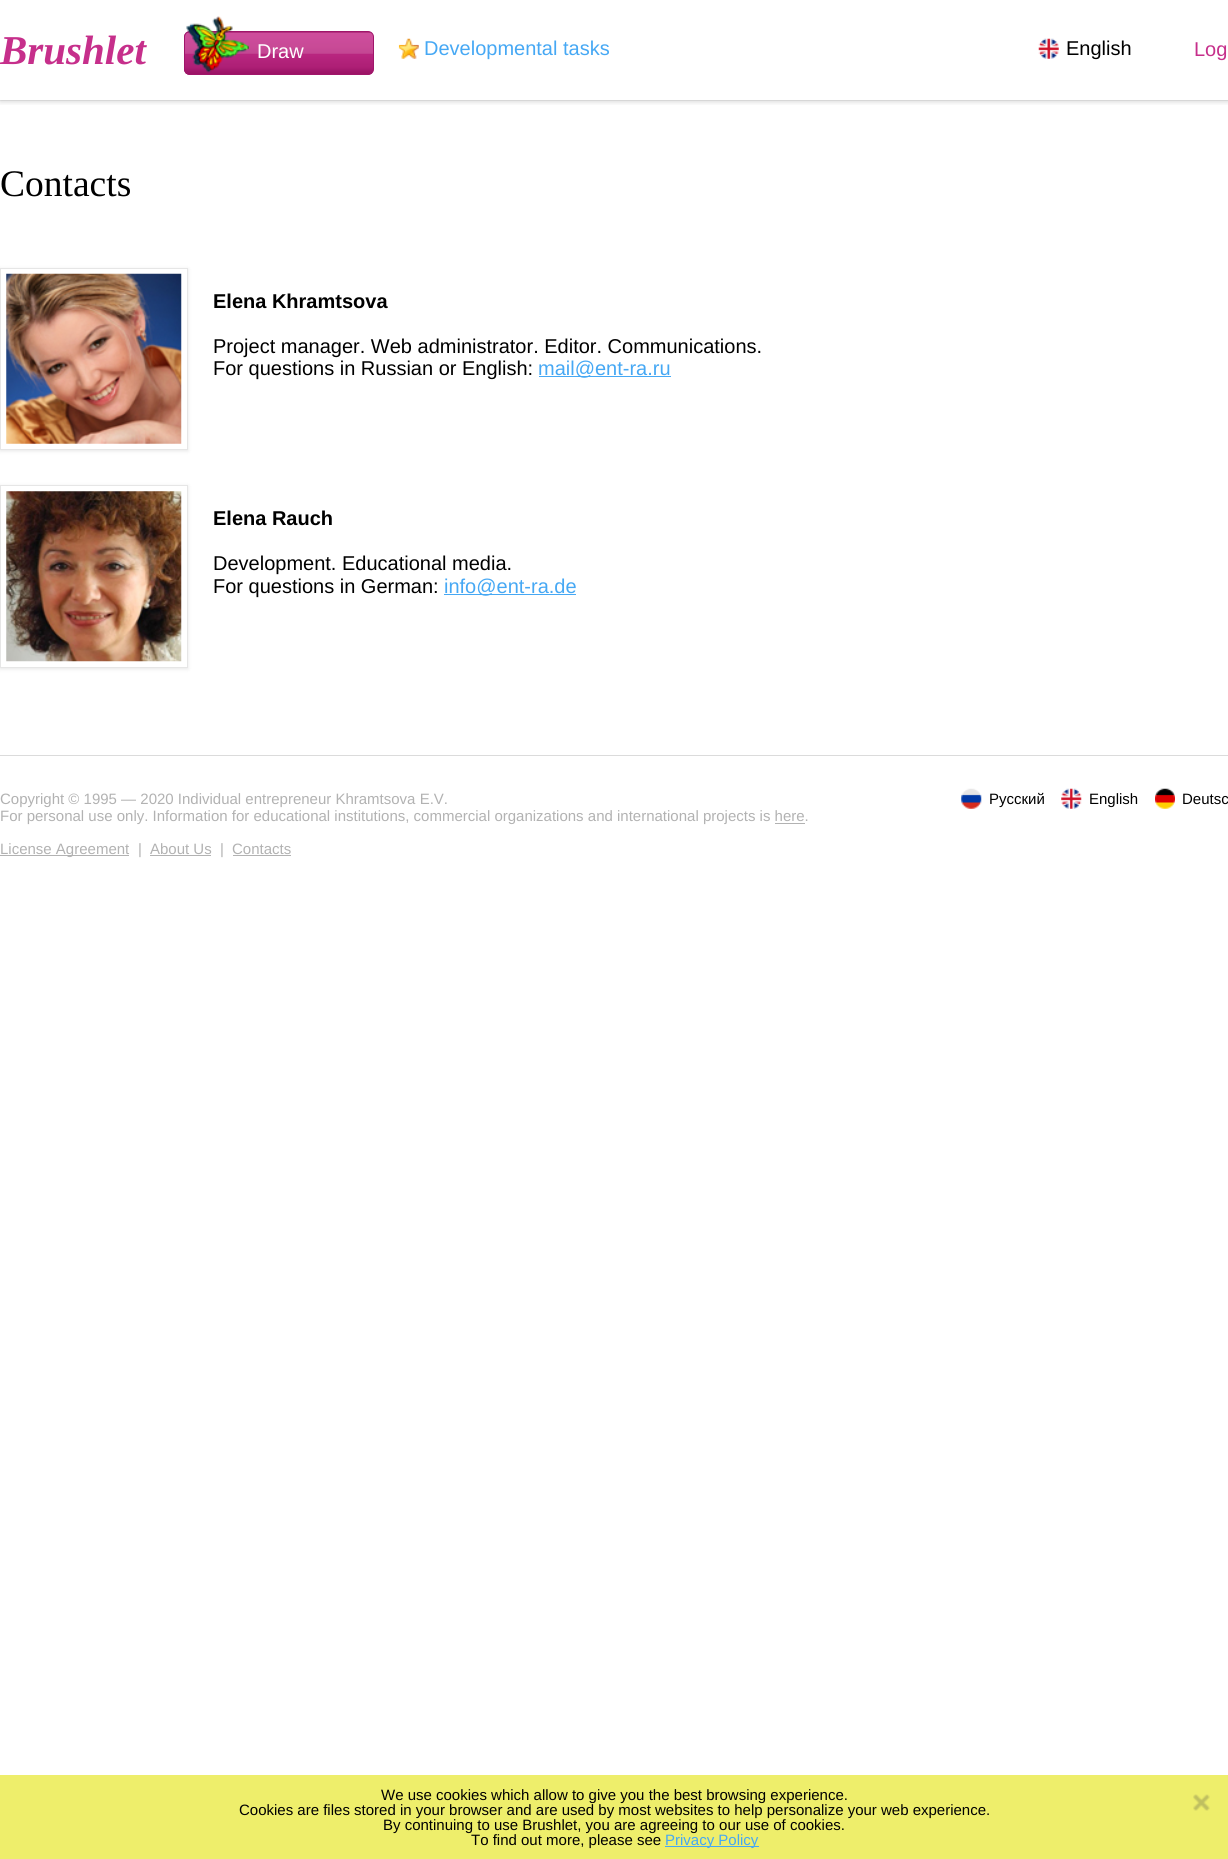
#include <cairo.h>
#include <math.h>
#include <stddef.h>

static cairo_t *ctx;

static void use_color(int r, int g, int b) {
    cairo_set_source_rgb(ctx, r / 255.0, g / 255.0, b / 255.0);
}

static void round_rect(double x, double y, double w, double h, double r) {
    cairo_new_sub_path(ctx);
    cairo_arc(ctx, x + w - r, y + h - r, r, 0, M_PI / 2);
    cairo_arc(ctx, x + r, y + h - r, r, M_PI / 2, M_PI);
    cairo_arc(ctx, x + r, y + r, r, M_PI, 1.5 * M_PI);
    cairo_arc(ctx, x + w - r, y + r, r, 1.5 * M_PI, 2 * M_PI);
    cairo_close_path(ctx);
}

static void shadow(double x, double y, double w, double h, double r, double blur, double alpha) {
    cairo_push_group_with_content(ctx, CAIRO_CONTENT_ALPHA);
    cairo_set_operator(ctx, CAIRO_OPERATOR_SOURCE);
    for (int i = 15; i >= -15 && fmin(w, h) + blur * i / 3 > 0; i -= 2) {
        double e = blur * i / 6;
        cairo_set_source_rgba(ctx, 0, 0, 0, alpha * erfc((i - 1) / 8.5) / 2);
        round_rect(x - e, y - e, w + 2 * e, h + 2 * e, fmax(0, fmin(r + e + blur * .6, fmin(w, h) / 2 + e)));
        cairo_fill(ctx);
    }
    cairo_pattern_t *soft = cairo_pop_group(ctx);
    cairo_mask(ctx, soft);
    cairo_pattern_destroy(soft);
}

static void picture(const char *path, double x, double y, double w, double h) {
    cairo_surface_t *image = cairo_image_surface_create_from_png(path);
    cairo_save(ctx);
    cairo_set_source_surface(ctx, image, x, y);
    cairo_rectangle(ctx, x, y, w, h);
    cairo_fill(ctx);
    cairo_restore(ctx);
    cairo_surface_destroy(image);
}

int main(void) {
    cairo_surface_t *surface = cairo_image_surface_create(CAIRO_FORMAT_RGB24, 1228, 1859);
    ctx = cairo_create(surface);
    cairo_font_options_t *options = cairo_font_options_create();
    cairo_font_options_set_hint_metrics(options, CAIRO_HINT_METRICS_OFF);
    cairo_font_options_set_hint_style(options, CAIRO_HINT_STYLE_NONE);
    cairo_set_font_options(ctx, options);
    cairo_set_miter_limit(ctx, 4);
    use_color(255, 255, 255);
    cairo_paint(ctx);
    cairo_save(ctx);
    cairo_rectangle(ctx, 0, 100, 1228, 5);
    cairo_clip(ctx);
    use_color(0, 0, 0);
    shadow(0, 1, 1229, 100, 0, 3, 0.2);
    cairo_restore(ctx);
    cairo_set_source_rgba(ctx, 0, 0, 0, 0.05);
    cairo_new_path(ctx);
    cairo_move_to(ctx, 0, 100);
    cairo_line_to(ctx, 0, 101);
    cairo_line_to(ctx, 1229, 101);
    cairo_line_to(ctx, 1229, 1);
    cairo_line_to(ctx, 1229, 100);
    cairo_close_path(ctx);
    cairo_fill(ctx);
    cairo_select_font_face(ctx, "Liberation Serif", CAIRO_FONT_SLANT_ITALIC, CAIRO_FONT_WEIGHT_BOLD);
    cairo_set_font_size(ctx, 41);
    use_color(198, 47, 139);
    cairo_move_to(ctx, 0, 64);
    cairo_show_text(ctx, "Brushlet");
    picture("img1.png", 184, 31, 190, 44);
    round_rect(184.5, 31.5, 189, 43, 5.5);
    use_color(160, 22, 106);
    cairo_set_line_width(ctx, 1);
    cairo_stroke(ctx);
    picture("img2.png", 186, 16, 63, 57);
    cairo_select_font_face(ctx, "Liberation Sans", CAIRO_FONT_SLANT_NORMAL, CAIRO_FONT_WEIGHT_NORMAL);
    cairo_set_font_size(ctx, 20);
    use_color(255, 255, 255);
    cairo_move_to(ctx, 257, 58);
    cairo_show_text(ctx, "Draw");
    picture("img3.png", 398, 38, 21, 21);
    use_color(70, 168, 244);
    cairo_move_to(ctx, 424, 55);
    cairo_show_text(ctx, "Developmental tasks");
    picture("img4.png", 1038, 38, 21, 21);
    use_color(0, 0, 0);
    cairo_move_to(ctx, 1066, 55);
    cairo_show_text(ctx, "English");
    use_color(198, 47, 139);
    cairo_move_to(ctx, 1194, 56);
    cairo_show_text(ctx, "Log");
    cairo_select_font_face(ctx, "Liberation Serif", CAIRO_FONT_SLANT_NORMAL, CAIRO_FONT_WEIGHT_NORMAL);
    cairo_set_font_size(ctx, 37.5);
    use_color(0, 0, 0);
    cairo_move_to(ctx, 0, 196);
    cairo_show_text(ctx, "Contacts");
    use_color(0, 0, 0);
    shadow(0, 269, 188, 182, 0, 2, 0.1);
    use_color(255, 255, 255);
    cairo_rectangle(ctx, 0.5, 268.5, 187, 181);
    cairo_fill_preserve(ctx);
    use_color(230, 230, 230);
    cairo_stroke(ctx);
    picture("img5.png", 6, 273, 176, 171);
    cairo_select_font_face(ctx, "Liberation Sans", CAIRO_FONT_SLANT_NORMAL, CAIRO_FONT_WEIGHT_BOLD);
    cairo_set_font_size(ctx, 20);
    use_color(0, 0, 0);
    cairo_move_to(ctx, 213, 308);
    cairo_show_text(ctx, "Elena Khramtsova");
    cairo_select_font_face(ctx, "Liberation Sans", CAIRO_FONT_SLANT_NORMAL, CAIRO_FONT_WEIGHT_NORMAL);
    cairo_move_to(ctx, 213, 353);
    cairo_show_text(ctx, "Project manager. Web administrator. Editor. Communications.");
    cairo_move_to(ctx, 213, 375);
    cairo_show_text(ctx, "For questions in Russian or English:");
    use_color(70, 168, 244);
    cairo_rectangle(ctx, 539, 376, 132, 1);
    cairo_fill(ctx);
    cairo_move_to(ctx, 538, 375);
    cairo_show_text(ctx, "mail@ent-ra.ru");
    use_color(0, 0, 0);
    shadow(0, 486, 188, 183, 0, 2, 0.1);
    use_color(255, 255, 255);
    cairo_rectangle(ctx, 0.5, 485.5, 187, 182);
    cairo_fill_preserve(ctx);
    use_color(230, 230, 230);
    cairo_stroke(ctx);
    picture("img6.png", 6, 491, 176, 171);
    cairo_select_font_face(ctx, "Liberation Sans", CAIRO_FONT_SLANT_NORMAL, CAIRO_FONT_WEIGHT_BOLD);
    use_color(0, 0, 0);
    cairo_move_to(ctx, 213, 525);
    cairo_show_text(ctx, "Elena Rauch");
    cairo_select_font_face(ctx, "Liberation Sans", CAIRO_FONT_SLANT_NORMAL, CAIRO_FONT_WEIGHT_NORMAL);
    cairo_move_to(ctx, 213, 570);
    cairo_show_text(ctx, "Development. Educational media.");
    cairo_move_to(ctx, 213, 593);
    cairo_show_text(ctx, "For questions in German:");
    use_color(70, 168, 244);
    cairo_rectangle(ctx, 444, 594, 132, 1);
    cairo_fill(ctx);
    cairo_move_to(ctx, 444, 593);
    cairo_show_text(ctx, "info@ent-ra.de");
    use_color(219, 219, 219);
    cairo_rectangle(ctx, 0, 755, 1228, 1);
    cairo_fill(ctx);
    cairo_set_font_size(ctx, 15);
    use_color(178, 178, 178);
    cairo_move_to(ctx, 0, 804);
    cairo_show_text(ctx, "Copyright © 1995 — 2020 Individual entrepreneur Khramtsova E.V.");
    cairo_move_to(ctx, 0, 821);
    cairo_show_text(ctx, "For personal use only. Information for educational institutions, commercial organizations and international projects is here.");
    cairo_rectangle(ctx, 775, 823, 30, 1);
    cairo_fill(ctx);
    cairo_rectangle(ctx, 0, 855, 129, 1);
    cairo_fill(ctx);
    cairo_move_to(ctx, 0, 854);
    cairo_show_text(ctx, "License Agreement");
    cairo_move_to(ctx, 138, 854);
    cairo_show_text(ctx, "|");
    cairo_move_to(ctx, 150, 854);
    cairo_show_text(ctx, "About Us");
    cairo_rectangle(ctx, 150, 855, 61, 1);
    cairo_fill(ctx);
    cairo_move_to(ctx, 220, 854);
    cairo_show_text(ctx, "|");
    cairo_move_to(ctx, 232, 854);
    cairo_show_text(ctx, "Contacts");
    cairo_rectangle(ctx, 233, 855, 58, 1);
    cairo_fill(ctx);
    picture("img7.png", 961, 788, 21, 21);
    use_color(0, 0, 0);
    cairo_move_to(ctx, 989, 804);
    cairo_show_text(ctx, "Русский");
    picture("img8.png", 1061, 788, 21, 21);
    cairo_move_to(ctx, 1089, 804);
    cairo_show_text(ctx, "English");
    picture("img9.png", 1155, 788, 20, 21);
    cairo_move_to(ctx, 1182, 804);
    cairo_show_text(ctx, "Deutsc");
    use_color(238, 238, 107);
    cairo_rectangle(ctx, 0, 1775, 1228, 84);
    cairo_fill(ctx);
    use_color(0, 0, 0);
    cairo_move_to(ctx, 381, 1800);
    cairo_show_text(ctx, "We use cookies which allow to give you the best browsing experience.");
    cairo_move_to(ctx, 239, 1815);
    cairo_show_text(ctx, "Cookies are files stored in your browser and are used by most websites to help personalize your web experience.");
    cairo_move_to(ctx, 383, 1830);
    cairo_show_text(ctx, "By continuing to use Brushlet, you are agreeing to our use of cookies.");
    cairo_move_to(ctx, 471, 1845);
    cairo_show_text(ctx, "To find out more, please see");
    use_color(70, 168, 244);
    cairo_rectangle(ctx, 665, 1846, 94, 1);
    cairo_fill(ctx);
    cairo_move_to(ctx, 665, 1845);
    cairo_show_text(ctx, "Privacy Policy");
    picture("img10.png", 1193, 1794, 17, 17);
    cairo_surface_write_to_png(surface, "result.png");
    cairo_font_options_destroy(options);
    cairo_destroy(ctx);
    cairo_surface_destroy(surface);
    return 0;
}
